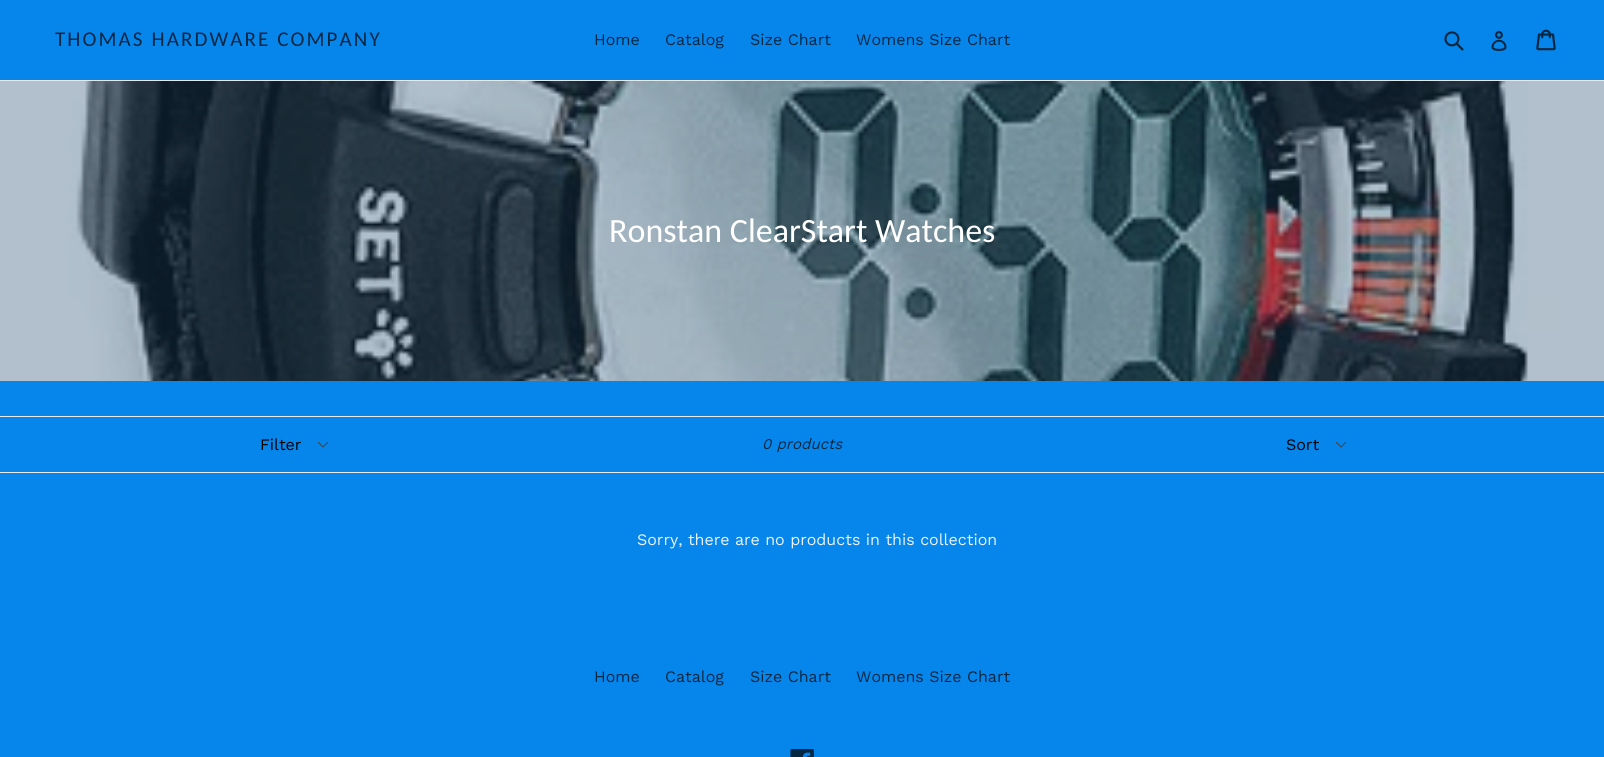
#include <cairo.h>
#include <math.h>
#include <stddef.h>

static cairo_t *ctx;

static void use_color(int r, int g, int b) {
    cairo_set_source_rgb(ctx, r / 255.0, g / 255.0, b / 255.0);
}

static void spaced_text(double x, double y, const char *s, double letter, double word) {
    cairo_move_to(ctx, x, y);
    while (*s) {
        char ch[5] = {0};
        int n = 0;
        do ch[n++] = *s++; while ((*s & 0xC0) == 0x80);
        cairo_show_text(ctx, ch);
        cairo_rel_move_to(ctx, letter + word * (*ch == ' '), 0);
    }
}

static void picture(const char *path, double x, double y, double w, double h) {
    cairo_surface_t *image = cairo_image_surface_create_from_png(path);
    cairo_save(ctx);
    cairo_set_source_surface(ctx, image, x, y);
    cairo_rectangle(ctx, x, y, w, h);
    cairo_fill(ctx);
    cairo_restore(ctx);
    cairo_surface_destroy(image);
}

int main(void) {
    cairo_surface_t *surface = cairo_image_surface_create(CAIRO_FORMAT_RGB24, 1604, 757);
    ctx = cairo_create(surface);
    cairo_font_options_t *options = cairo_font_options_create();
    cairo_font_options_set_hint_metrics(options, CAIRO_HINT_METRICS_OFF);
    cairo_font_options_set_hint_style(options, CAIRO_HINT_STYLE_NONE);
    cairo_set_font_options(ctx, options);
    cairo_set_miter_limit(ctx, 4);
    use_color(6, 134, 235);
    cairo_paint(ctx);
    use_color(232, 233, 235);
    cairo_rectangle(ctx, 0, 80, 1604, 1);
    cairo_fill(ctx);
    cairo_select_font_face(ctx, "Carlito", CAIRO_FONT_SLANT_NORMAL, CAIRO_FONT_WEIGHT_NORMAL);
    cairo_set_font_size(ctx, 21);
    use_color(5, 39, 66);
    spaced_text(55, 46, "THOMAS HARDWARE COMPANY", 2.1, 0);
    cairo_select_font_face(ctx, "Work Sans", CAIRO_FONT_SLANT_NORMAL, CAIRO_FONT_WEIGHT_NORMAL);
    cairo_set_font_size(ctx, 16);
    cairo_move_to(ctx, 594, 45);
    cairo_show_text(ctx, "Home");
    cairo_move_to(ctx, 665, 45);
    cairo_show_text(ctx, "Catalog");
    cairo_move_to(ctx, 750, 45);
    cairo_show_text(ctx, "Size Chart");
    cairo_move_to(ctx, 856, 45);
    cairo_show_text(ctx, "Womens Size Chart");
    picture("img1.png", 1444, 31, 20, 20);
    picture("img2.png", 1491, 31, 16, 20);
    picture("img3.png", 1536, 29, 20, 22);
    picture("img4.png", 0, 81, 1604, 300);
    cairo_select_font_face(ctx, "Carlito", CAIRO_FONT_SLANT_NORMAL, CAIRO_FONT_WEIGHT_NORMAL);
    cairo_set_font_size(ctx, 34);
    use_color(255, 255, 255);
    cairo_move_to(ctx, 609, 242);
    cairo_show_text(ctx, "Ronstan ClearStart Watches");
    use_color(232, 233, 235);
    cairo_rectangle(ctx, 0, 416, 1604, 1);
    cairo_fill(ctx);
    cairo_rectangle(ctx, 0, 472, 1604, 1);
    cairo_fill(ctx);
    picture("img5.png", 317, 441, 12, 7);
    cairo_select_font_face(ctx, "Work Sans", CAIRO_FONT_SLANT_NORMAL, CAIRO_FONT_WEIGHT_NORMAL);
    cairo_set_font_size(ctx, 16);
    use_color(0, 0, 0);
    cairo_move_to(ctx, 260, 450);
    cairo_show_text(ctx, "Filter");
    cairo_select_font_face(ctx, "Work Sans", CAIRO_FONT_SLANT_ITALIC, CAIRO_FONT_WEIGHT_NORMAL);
    cairo_set_font_size(ctx, 15);
    use_color(5, 39, 66);
    cairo_move_to(ctx, 762, 449);
    cairo_show_text(ctx, "0 products");
    picture("img5.png", 1335, 441, 12, 7);
    cairo_select_font_face(ctx, "Work Sans", CAIRO_FONT_SLANT_NORMAL, CAIRO_FONT_WEIGHT_NORMAL);
    cairo_set_font_size(ctx, 16);
    use_color(0, 0, 0);
    cairo_move_to(ctx, 1286, 450);
    cairo_show_text(ctx, "Sort");
    use_color(233, 242, 246);
    cairo_move_to(ctx, 637, 545);
    cairo_show_text(ctx, "Sorry, there are no products in this collection");
    use_color(5, 39, 66);
    cairo_move_to(ctx, 594, 682);
    cairo_show_text(ctx, "Home");
    cairo_move_to(ctx, 665, 682);
    cairo_show_text(ctx, "Catalog");
    cairo_move_to(ctx, 750, 682);
    cairo_show_text(ctx, "Size Chart");
    cairo_move_to(ctx, 856, 682);
    cairo_show_text(ctx, "Womens Size Chart");
    picture("img6.png", 790, 749, 24, 8);
    cairo_surface_write_to_png(surface, "result.png");
    cairo_font_options_destroy(options);
    cairo_destroy(ctx);
    cairo_surface_destroy(surface);
    return 0;
}
